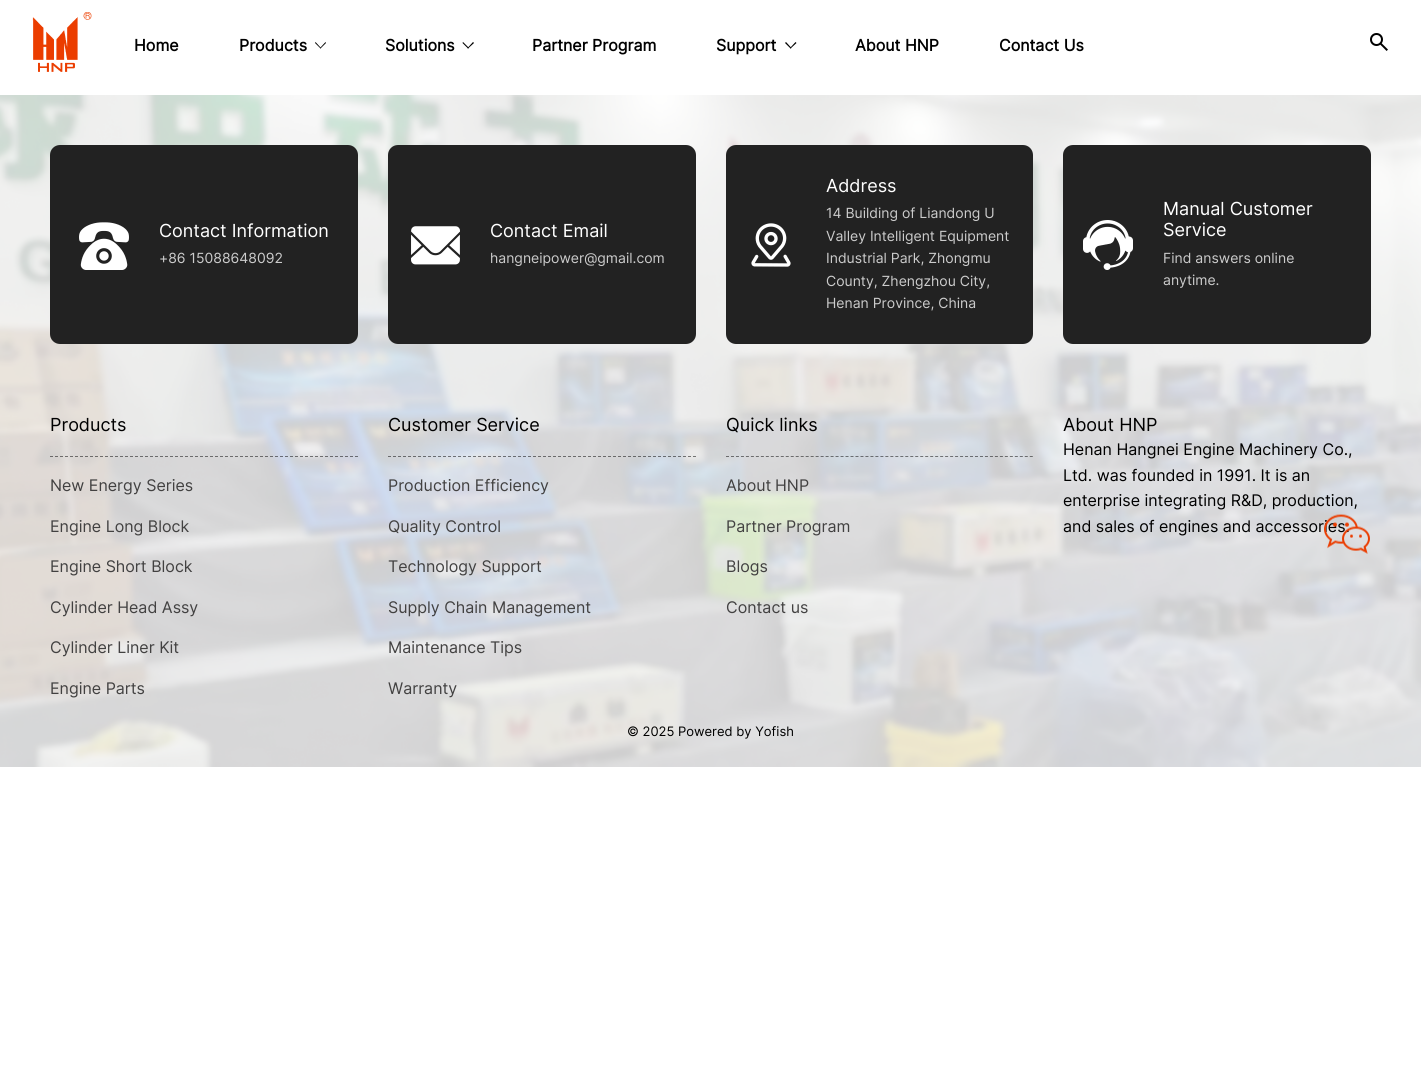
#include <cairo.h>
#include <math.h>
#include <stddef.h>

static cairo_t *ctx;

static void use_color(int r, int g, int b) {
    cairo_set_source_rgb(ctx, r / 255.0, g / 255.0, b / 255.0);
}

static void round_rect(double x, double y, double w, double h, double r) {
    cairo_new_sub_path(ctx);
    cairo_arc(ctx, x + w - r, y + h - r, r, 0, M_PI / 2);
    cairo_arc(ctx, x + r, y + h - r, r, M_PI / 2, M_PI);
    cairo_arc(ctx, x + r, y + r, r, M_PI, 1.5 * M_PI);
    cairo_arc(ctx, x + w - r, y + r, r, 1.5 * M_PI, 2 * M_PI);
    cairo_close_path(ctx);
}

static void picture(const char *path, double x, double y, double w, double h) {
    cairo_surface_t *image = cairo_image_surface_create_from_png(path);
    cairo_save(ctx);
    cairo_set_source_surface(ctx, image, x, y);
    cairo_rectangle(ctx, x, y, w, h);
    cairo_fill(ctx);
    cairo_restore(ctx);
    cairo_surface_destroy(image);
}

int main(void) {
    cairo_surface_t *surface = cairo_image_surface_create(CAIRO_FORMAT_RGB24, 1421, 1072);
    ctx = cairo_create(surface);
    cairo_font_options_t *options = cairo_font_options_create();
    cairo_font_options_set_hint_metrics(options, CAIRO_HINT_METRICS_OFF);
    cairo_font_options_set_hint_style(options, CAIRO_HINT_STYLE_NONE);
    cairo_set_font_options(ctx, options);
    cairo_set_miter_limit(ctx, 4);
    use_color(255, 255, 255);
    cairo_paint(ctx);
    picture("img1.png", 32, 12, 60, 60);
    cairo_select_font_face(ctx, "Inter", CAIRO_FONT_SLANT_NORMAL, CAIRO_FONT_WEIGHT_BOLD);
    cairo_set_font_size(ctx, 16);
    use_color(0, 0, 0);
    cairo_move_to(ctx, 134, 51);
    cairo_show_text(ctx, "Home");
    cairo_move_to(ctx, 239, 51);
    cairo_show_text(ctx, "Products");
    cairo_new_path(ctx);
    cairo_move_to(ctx, 325.5, 42);
    cairo_line_to(ctx, 326, 43);
    cairo_line_to(ctx, 320.5, 48.5);
    cairo_line_to(ctx, 320, 48);
    cairo_close_path(ctx);
    cairo_fill(ctx);
    cairo_new_path(ctx);
    cairo_move_to(ctx, 315.5, 42);
    cairo_line_to(ctx, 321, 48);
    cairo_line_to(ctx, 320.5, 48.5);
    cairo_line_to(ctx, 315, 43);
    cairo_close_path(ctx);
    cairo_fill(ctx);
    cairo_move_to(ctx, 385, 51);
    cairo_show_text(ctx, "Solutions");
    cairo_new_path(ctx);
    cairo_move_to(ctx, 473, 42);
    cairo_line_to(ctx, 474, 43);
    cairo_line_to(ctx, 468, 48.5);
    cairo_line_to(ctx, 467.5, 48);
    cairo_close_path(ctx);
    cairo_fill(ctx);
    cairo_new_path(ctx);
    cairo_move_to(ctx, 463, 42);
    cairo_line_to(ctx, 469, 48);
    cairo_line_to(ctx, 468, 48.5);
    cairo_line_to(ctx, 462.5, 43);
    cairo_close_path(ctx);
    cairo_fill(ctx);
    cairo_move_to(ctx, 532, 51);
    cairo_show_text(ctx, "Partner Program");
    cairo_move_to(ctx, 716, 51);
    cairo_show_text(ctx, "Support");
    cairo_new_path(ctx);
    cairo_move_to(ctx, 795.5, 42);
    cairo_line_to(ctx, 796.5, 43);
    cairo_line_to(ctx, 790.5, 48.5);
    cairo_line_to(ctx, 790, 48);
    cairo_close_path(ctx);
    cairo_fill(ctx);
    cairo_new_path(ctx);
    cairo_move_to(ctx, 786, 42);
    cairo_line_to(ctx, 791.5, 48);
    cairo_line_to(ctx, 790.5, 48.5);
    cairo_line_to(ctx, 785, 43);
    cairo_close_path(ctx);
    cairo_fill(ctx);
    cairo_move_to(ctx, 855, 51);
    cairo_show_text(ctx, "About HNP");
    cairo_move_to(ctx, 999, 51);
    cairo_show_text(ctx, "Contact Us");
    picture("img2.png", 1370, 33, 18, 18);
    picture("img3.png", 0, 95, 1421, 672);
    use_color(34, 34, 34);
    round_rect(50, 145, 308, 199, 10);
    cairo_fill(ctx);
    picture("img4.png", 79, 222, 50, 48);
    cairo_select_font_face(ctx, "Inter", CAIRO_FONT_SLANT_NORMAL, CAIRO_FONT_WEIGHT_NORMAL);
    cairo_set_font_size(ctx, 18);
    use_color(255, 255, 255);
    cairo_move_to(ctx, 159, 237);
    cairo_show_text(ctx, "Contact Information");
    cairo_set_font_size(ctx, 14);
    use_color(204, 204, 204);
    cairo_move_to(ctx, 159, 263);
    cairo_show_text(ctx, "+86 15088648092");
    use_color(34, 34, 34);
    round_rect(388, 145, 308, 199, 10);
    cairo_fill(ctx);
    picture("img5.png", 411, 226, 49, 39);
    cairo_set_font_size(ctx, 18);
    use_color(255, 255, 255);
    cairo_move_to(ctx, 490, 237);
    cairo_show_text(ctx, "Contact Email");
    cairo_set_font_size(ctx, 14);
    use_color(204, 204, 204);
    cairo_move_to(ctx, 490, 263);
    cairo_show_text(ctx, "hangneipower@gmail.com");
    use_color(34, 34, 34);
    round_rect(726, 145, 307, 199, 10);
    cairo_fill(ctx);
    picture("img6.png", 751, 223, 40, 44);
    cairo_set_font_size(ctx, 18);
    use_color(255, 255, 255);
    cairo_move_to(ctx, 826, 192);
    cairo_show_text(ctx, "Address");
    cairo_set_font_size(ctx, 14);
    use_color(204, 204, 204);
    cairo_move_to(ctx, 826, 218);
    cairo_show_text(ctx, "14 Building of Liandong U");
    cairo_move_to(ctx, 826, 241);
    cairo_show_text(ctx, "Valley Intelligent Equipment");
    cairo_move_to(ctx, 826, 263);
    cairo_show_text(ctx, "Industrial Park, Zhongmu");
    cairo_move_to(ctx, 826, 286);
    cairo_show_text(ctx, "County, Zhengzhou City,");
    cairo_move_to(ctx, 826, 308);
    cairo_show_text(ctx, "Henan Province, China");
    use_color(34, 34, 34);
    round_rect(1063, 145, 308, 199, 10);
    cairo_fill(ctx);
    picture("img7.png", 1083, 220, 50, 50);
    cairo_set_font_size(ctx, 18);
    use_color(255, 255, 255);
    cairo_move_to(ctx, 1163, 215);
    cairo_show_text(ctx, "Manual Customer");
    cairo_move_to(ctx, 1163, 236);
    cairo_show_text(ctx, "Service");
    cairo_set_font_size(ctx, 14);
    use_color(204, 204, 204);
    cairo_move_to(ctx, 1163, 263);
    cairo_show_text(ctx, "Find answers online");
    cairo_move_to(ctx, 1163, 285);
    cairo_show_text(ctx, "anytime.");
    cairo_new_path(ctx);
    cairo_move_to(ctx, 50, 456.5);
    cairo_line_to(ctx, 358, 456.5);
    cairo_set_source_rgba(ctx, 0, 0, 0, 0.5);
    cairo_set_line_width(ctx, 1);
    cairo_set_dash(ctx, (double[]){3, 2}, 2, 0);
    cairo_stroke(ctx);
    cairo_set_font_size(ctx, 18);
    use_color(0, 0, 0);
    cairo_move_to(ctx, 50, 431);
    cairo_show_text(ctx, "Products");
    cairo_set_font_size(ctx, 16);
    use_color(66, 65, 65);
    cairo_move_to(ctx, 50, 491);
    cairo_show_text(ctx, "New Energy Series");
    cairo_move_to(ctx, 50, 532);
    cairo_show_text(ctx, "Engine Long Block");
    cairo_move_to(ctx, 50, 572);
    cairo_show_text(ctx, "Engine Short Block");
    cairo_move_to(ctx, 50, 613);
    cairo_show_text(ctx, "Cylinder Head Assy");
    cairo_move_to(ctx, 50, 653);
    cairo_show_text(ctx, "Cylinder Liner Kit");
    cairo_move_to(ctx, 50, 694);
    cairo_show_text(ctx, "Engine Parts");
    cairo_new_path(ctx);
    cairo_move_to(ctx, 388, 456.5);
    cairo_line_to(ctx, 696, 456.5);
    cairo_set_source_rgba(ctx, 0, 0, 0, 0.5);
    cairo_stroke(ctx);
    cairo_set_font_size(ctx, 18);
    use_color(0, 0, 0);
    cairo_move_to(ctx, 388, 431);
    cairo_show_text(ctx, "Customer Service");
    cairo_set_font_size(ctx, 16);
    use_color(66, 65, 65);
    cairo_move_to(ctx, 388, 491);
    cairo_show_text(ctx, "Production Efficiency");
    cairo_move_to(ctx, 388, 532);
    cairo_show_text(ctx, "Quality Control");
    cairo_move_to(ctx, 388, 572);
    cairo_show_text(ctx, "Technology Support");
    cairo_move_to(ctx, 388, 613);
    cairo_show_text(ctx, "Supply Chain Management");
    cairo_move_to(ctx, 388, 653);
    cairo_show_text(ctx, "Maintenance Tips");
    cairo_move_to(ctx, 388, 694);
    cairo_show_text(ctx, "Warranty");
    cairo_new_path(ctx);
    cairo_move_to(ctx, 726, 456.5);
    cairo_line_to(ctx, 1033, 456.5);
    cairo_set_source_rgba(ctx, 0, 0, 0, 0.5);
    cairo_set_dash(ctx, (double[]){3, 1.98}, 2, 0);
    cairo_stroke(ctx);
    cairo_set_font_size(ctx, 18);
    use_color(0, 0, 0);
    cairo_move_to(ctx, 726, 431);
    cairo_show_text(ctx, "Quick links");
    cairo_set_font_size(ctx, 16);
    use_color(66, 65, 65);
    cairo_move_to(ctx, 726, 491);
    cairo_show_text(ctx, "About");
    cairo_move_to(ctx, 775, 491);
    cairo_show_text(ctx, "HNP");
    cairo_move_to(ctx, 726, 532);
    cairo_show_text(ctx, "Partner Program");
    cairo_move_to(ctx, 726, 572);
    cairo_show_text(ctx, "Blogs");
    cairo_move_to(ctx, 726, 613);
    cairo_show_text(ctx, "Contact us");
    cairo_set_font_size(ctx, 18);
    use_color(0, 0, 0);
    cairo_move_to(ctx, 1063, 431);
    cairo_show_text(ctx, "About HNP");
    cairo_set_font_size(ctx, 16);
    cairo_move_to(ctx, 1063, 455);
    cairo_show_text(ctx, "Henan Hangnei Engine Machinery Co.,");
    cairo_move_to(ctx, 1063, 481);
    cairo_show_text(ctx, "Ltd. was founded in 1991. It is an");
    cairo_move_to(ctx, 1063, 506);
    cairo_show_text(ctx, "enterprise integrating R&D, production,");
    cairo_move_to(ctx, 1063, 532);
    cairo_show_text(ctx, "and sales of engines and accessories.");
    cairo_set_font_size(ctx, 13);
    cairo_move_to(ctx, 627, 736);
    cairo_show_text(ctx, "© 2025 Powered by Yofish");
    picture("img8.png", 1324, 514, 46, 40);
    cairo_surface_write_to_png(surface, "result.png");
    cairo_font_options_destroy(options);
    cairo_destroy(ctx);
    cairo_surface_destroy(surface);
    return 0;
}
